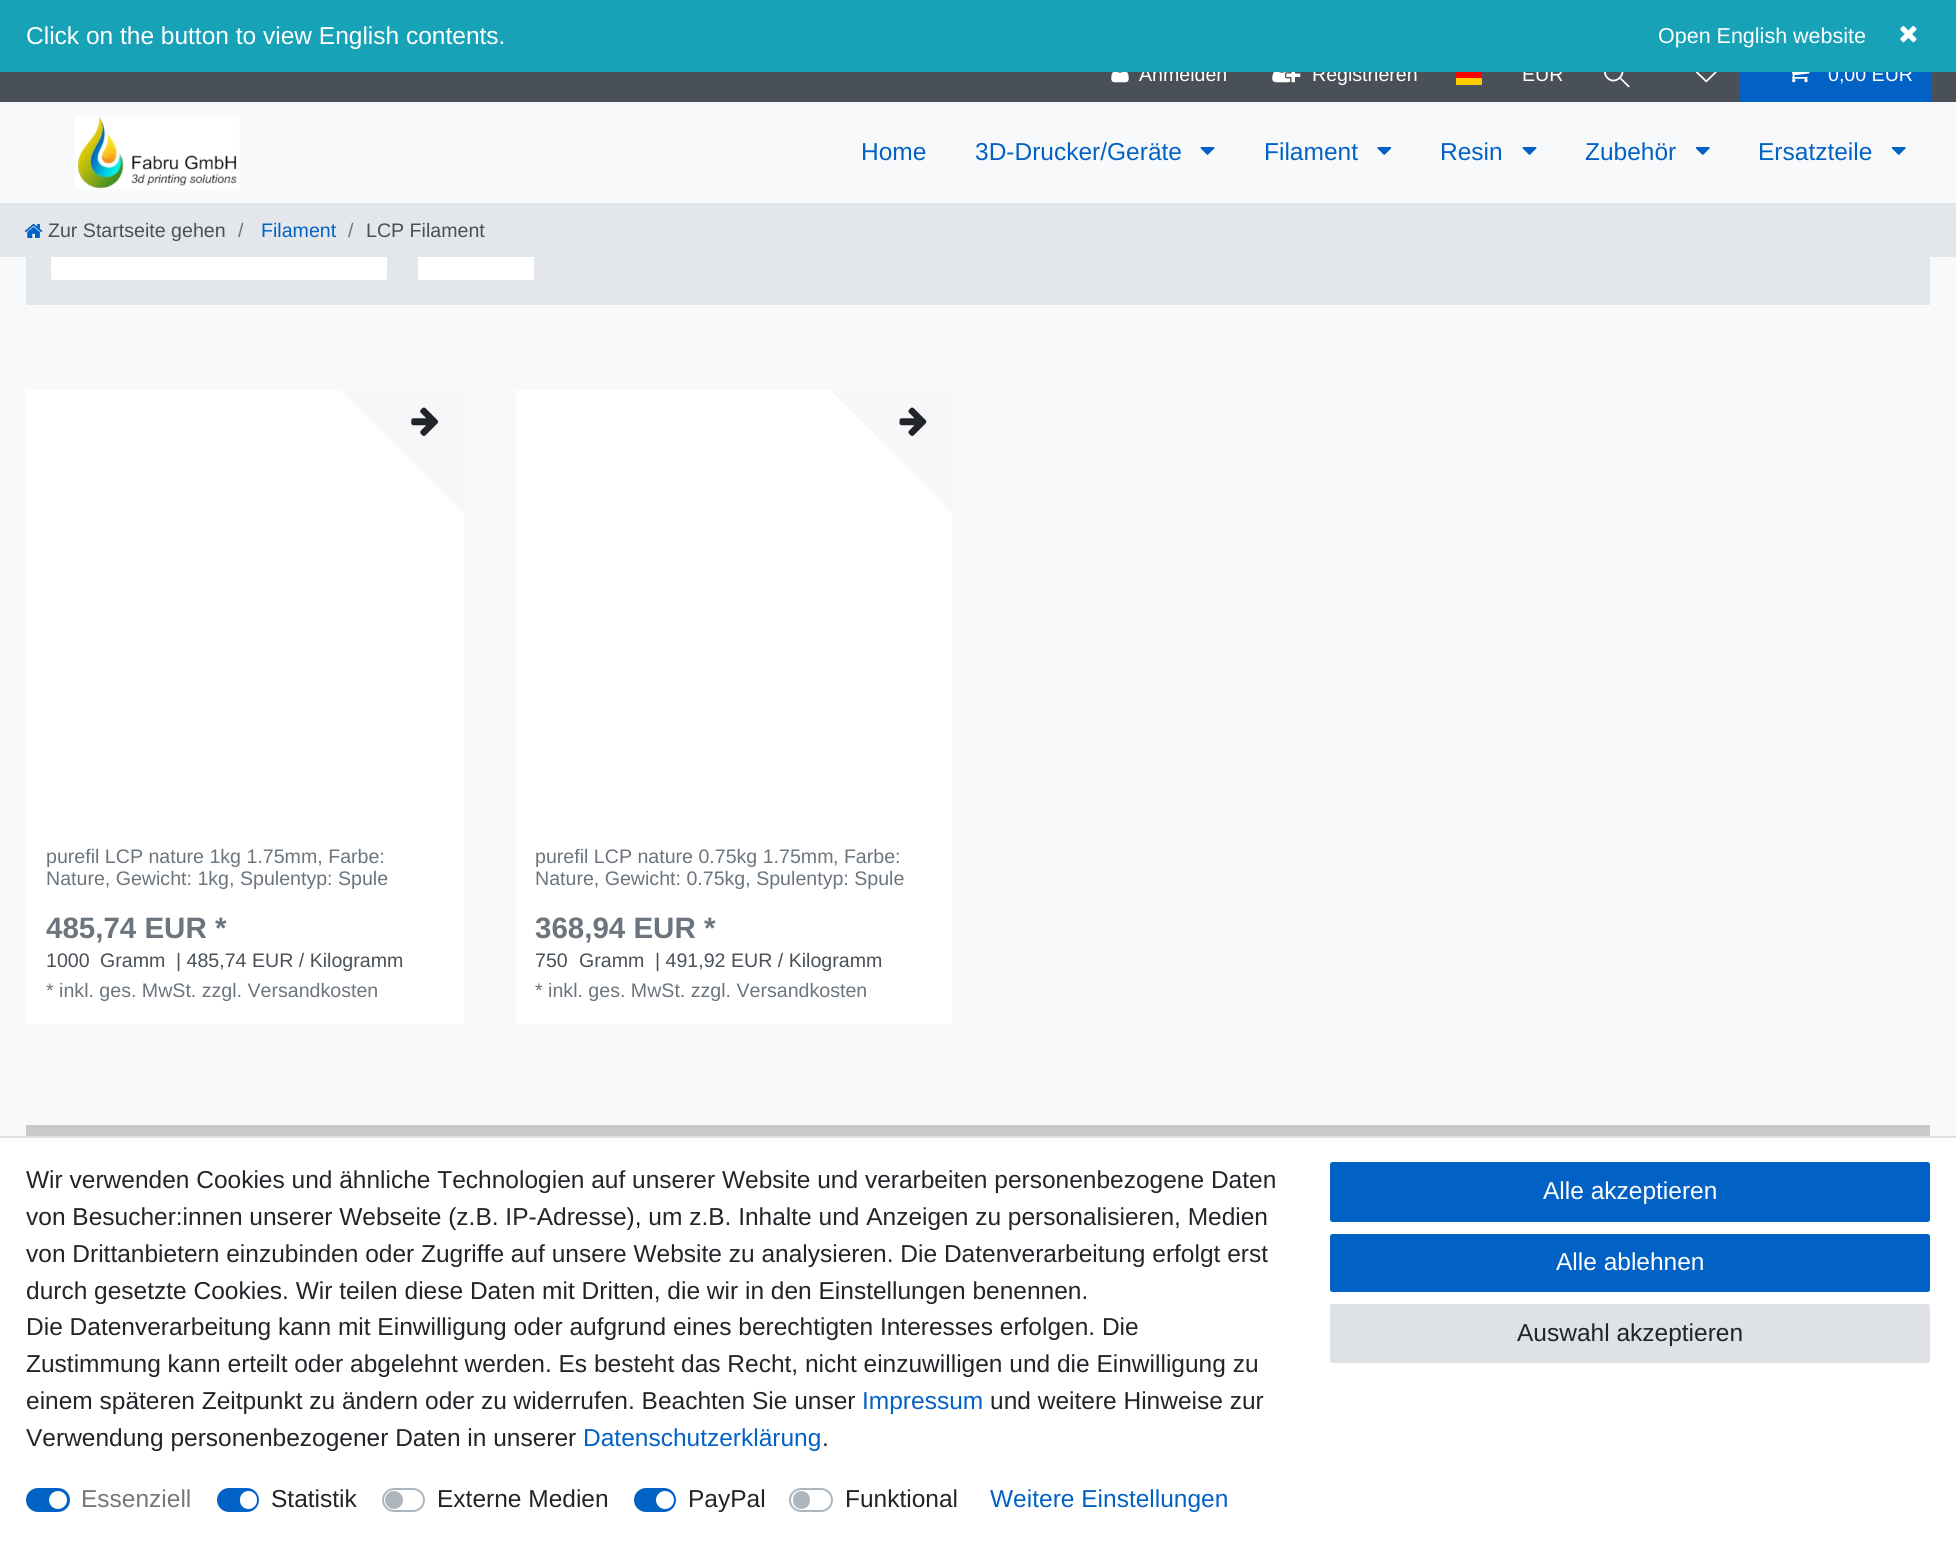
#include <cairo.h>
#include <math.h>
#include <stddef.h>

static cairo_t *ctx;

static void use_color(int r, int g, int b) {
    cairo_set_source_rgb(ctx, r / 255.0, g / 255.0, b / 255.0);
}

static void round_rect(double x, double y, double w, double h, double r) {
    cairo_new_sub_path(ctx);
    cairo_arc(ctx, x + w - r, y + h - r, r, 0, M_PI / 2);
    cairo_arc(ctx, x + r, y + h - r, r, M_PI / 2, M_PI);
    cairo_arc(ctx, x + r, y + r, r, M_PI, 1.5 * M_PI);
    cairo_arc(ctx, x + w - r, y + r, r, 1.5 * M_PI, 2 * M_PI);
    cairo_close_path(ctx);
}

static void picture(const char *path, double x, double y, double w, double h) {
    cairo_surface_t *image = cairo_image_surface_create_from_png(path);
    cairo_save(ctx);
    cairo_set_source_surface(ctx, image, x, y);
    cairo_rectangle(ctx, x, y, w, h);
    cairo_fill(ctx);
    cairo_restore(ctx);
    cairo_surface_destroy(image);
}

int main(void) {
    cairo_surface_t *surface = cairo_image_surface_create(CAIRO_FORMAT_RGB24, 1956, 1541);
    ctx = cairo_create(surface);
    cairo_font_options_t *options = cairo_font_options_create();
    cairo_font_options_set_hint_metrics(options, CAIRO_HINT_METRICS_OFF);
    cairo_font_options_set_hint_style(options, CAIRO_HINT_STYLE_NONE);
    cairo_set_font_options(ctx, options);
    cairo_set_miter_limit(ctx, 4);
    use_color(248, 249, 250);
    cairo_paint(ctx);
    use_color(73, 80, 87);
    cairo_rectangle(ctx, 0, 72, 1956, 30);
    cairo_fill(ctx);
    cairo_select_font_face(ctx, "Liberation Sans", CAIRO_FONT_SLANT_NORMAL, CAIRO_FONT_WEIGHT_NORMAL);
    cairo_set_font_size(ctx, 19.6);
    use_color(255, 255, 255);
    cairo_move_to(ctx, 1139, 81);
    cairo_show_text(ctx, "Anmelden");
    cairo_move_to(ctx, 1312, 81);
    cairo_show_text(ctx, "Registrieren");
    cairo_move_to(ctx, 1522, 81);
    cairo_show_text(ctx, "EUR");
    cairo_new_path(ctx);
    cairo_move_to(ctx, 1628, 87);
    cairo_line_to(ctx, 1610.5, 69.5);
    cairo_line_to(ctx, 1610.5, 69);
    cairo_curve_to(ctx, 1610.5, 68.5, 1611, 68, 1611.5, 68.5);
    cairo_line_to(ctx, 1629.5, 86);
    cairo_curve_to(ctx, 1630, 87, 1628.5, 87.5, 1628, 87);
    cairo_close_path(ctx);
    cairo_fill(ctx);
    use_color(73, 80, 87);
    cairo_new_path(ctx);
    cairo_move_to(ctx, 1607, 78.5);
    cairo_curve_to(ctx, 1598, 69.5, 1611.5, 56, 1620.5, 65);
    cairo_curve_to(ctx, 1629.5, 73.5, 1616, 87.5, 1607, 78.5);
    cairo_close_path(ctx);
    cairo_fill(ctx);
    cairo_new_path(ctx);
    cairo_move_to(ctx, 1607.5, 78);
    cairo_curve_to(ctx, 1599.5, 69.5, 1612, 57.5, 1620, 65.5);
    cairo_curve_to(ctx, 1628, 73.5, 1615.5, 86, 1607.5, 78);
    cairo_close_path(ctx);
    use_color(255, 255, 255);
    cairo_set_line_width(ctx, 1.8);
    cairo_stroke(ctx);
    use_color(2, 97, 197);
    cairo_rectangle(ctx, 1740, 72, 192, 30);
    cairo_fill(ctx);
    use_color(255, 255, 255);
    cairo_move_to(ctx, 1828, 81);
    cairo_show_text(ctx, "0,00 EUR");
    use_color(23, 162, 184);
    cairo_rectangle(ctx, 0, 0, 1956, 72);
    cairo_fill(ctx);
    cairo_set_font_size(ctx, 24.5);
    use_color(255, 255, 255);
    cairo_move_to(ctx, 26, 44);
    cairo_show_text(ctx, "Click on the button to view English contents.");
    cairo_set_font_size(ctx, 21.5);
    cairo_move_to(ctx, 1658, 43);
    cairo_show_text(ctx, "Open English website");
    picture("img1.png", 1900, 26, 17, 17);
    picture("img2.png", 1111, 72, 18, 11);
    picture("img3.png", 1272, 72, 29, 11);
    use_color(255, 204, 0);
    cairo_rectangle(ctx, 1456, 78, 26, 7);
    cairo_fill(ctx);
    use_color(255, 0, 0);
    cairo_rectangle(ctx, 1456, 72, 26, 6);
    cairo_fill(ctx);
    picture("img4.png", 1695, 72, 22, 11);
    picture("img5.png", 1792, 72, 18, 11);
    use_color(222, 226, 230);
    cairo_rectangle(ctx, 0, 203, 1956, 2);
    cairo_fill(ctx);
    picture("img6.png", 75, 116, 165, 73);
    cairo_set_font_size(ctx, 24.5);
    use_color(2, 97, 197);
    cairo_move_to(ctx, 861, 160);
    cairo_show_text(ctx, "Home");
    cairo_move_to(ctx, 975, 160);
    cairo_show_text(ctx, "3D-Drucker/Geräte");
    picture("img7.png", 1200, 147, 15, 8);
    cairo_move_to(ctx, 1264, 160);
    cairo_show_text(ctx, "Filament");
    picture("img8.png", 1377, 147, 15, 8);
    cairo_move_to(ctx, 1440, 160);
    cairo_show_text(ctx, "Resin");
    picture("img7.png", 1522, 147, 15, 8);
    cairo_move_to(ctx, 1585, 160);
    cairo_show_text(ctx, "Zubehör");
    picture("img9.png", 1695, 147, 15, 8);
    cairo_move_to(ctx, 1758, 160);
    cairo_show_text(ctx, "Ersatzteile");
    picture("img9.png", 1891, 147, 15, 8);
    use_color(227, 231, 235);
    cairo_rectangle(ctx, 26, 257, 1904, 48);
    cairo_fill(ctx);
    use_color(255, 255, 255);
    round_rect(51, 210, 336, 70, 2.5);
    cairo_fill(ctx);
    round_rect(418, 210, 116, 70, 2.5);
    cairo_fill(ctx);
    use_color(227, 231, 235);
    cairo_rectangle(ctx, 0, 205, 1956, 52);
    cairo_fill(ctx);
    picture("img10.png", 24, 224, 19, 14);
    cairo_set_font_size(ctx, 19.6);
    use_color(73, 80, 87);
    cairo_move_to(ctx, 48, 237);
    cairo_show_text(ctx, "Zur Startseite gehen");
    use_color(108, 117, 125);
    cairo_move_to(ctx, 238, 237);
    cairo_show_text(ctx, "/");
    use_color(2, 97, 197);
    cairo_move_to(ctx, 261, 237);
    cairo_show_text(ctx, "Filament");
    use_color(108, 117, 125);
    cairo_move_to(ctx, 348, 237);
    cairo_show_text(ctx, "/");
    use_color(73, 80, 87);
    cairo_move_to(ctx, 366, 237);
    cairo_show_text(ctx, "LCP Filament");
    use_color(255, 255, 255);
    cairo_rectangle(ctx, 26, 390, 438, 634);
    cairo_fill(ctx);
    use_color(247, 247, 249);
    cairo_new_path(ctx);
    cairo_move_to(ctx, 464, 390);
    cairo_line_to(ctx, 464, 513);
    cairo_line_to(ctx, 341, 390);
    cairo_close_path(ctx);
    cairo_fill(ctx);
    picture("img11.png", 411, 407, 28, 29);
    use_color(108, 117, 125);
    cairo_move_to(ctx, 46, 863);
    cairo_show_text(ctx, "purefil LCP nature 1kg 1.75mm, Farbe:");
    cairo_move_to(ctx, 46, 885);
    cairo_show_text(ctx, "Nature, Gewicht: 1kg, Spulentyp: Spule");
    cairo_select_font_face(ctx, "Liberation Sans", CAIRO_FONT_SLANT_NORMAL, CAIRO_FONT_WEIGHT_BOLD);
    cairo_set_font_size(ctx, 29.5);
    cairo_move_to(ctx, 46, 938);
    cairo_show_text(ctx, "485,74 EUR *");
    cairo_select_font_face(ctx, "Liberation Sans", CAIRO_FONT_SLANT_NORMAL, CAIRO_FONT_WEIGHT_NORMAL);
    cairo_set_font_size(ctx, 19.6);
    use_color(73, 80, 87);
    cairo_move_to(ctx, 46, 967);
    cairo_show_text(ctx, "1000");
    cairo_move_to(ctx, 100, 967);
    cairo_show_text(ctx, "Gramm");
    cairo_move_to(ctx, 176, 967);
    cairo_show_text(ctx, "| 485,74 EUR / Kilogramm");
    use_color(108, 117, 125);
    cairo_move_to(ctx, 46, 997);
    cairo_show_text(ctx, "* inkl. ges. MwSt. zzgl. Versandkosten");
    use_color(255, 255, 255);
    cairo_rectangle(ctx, 516, 390, 436, 634);
    cairo_fill(ctx);
    use_color(247, 247, 249);
    cairo_new_path(ctx);
    cairo_move_to(ctx, 952, 390);
    cairo_line_to(ctx, 952, 513);
    cairo_line_to(ctx, 830, 390);
    cairo_close_path(ctx);
    cairo_fill(ctx);
    picture("img12.png", 899, 407, 28, 29);
    use_color(108, 117, 125);
    cairo_move_to(ctx, 535, 863);
    cairo_show_text(ctx, "purefil LCP nature 0.75kg 1.75mm");
    cairo_move_to(ctx, 833, 863);
    cairo_show_text(ctx, ", Farbe:");
    cairo_move_to(ctx, 535, 885);
    cairo_show_text(ctx, "Nature, Gewicht: 0.75kg, Spulentyp: Spule");
    cairo_select_font_face(ctx, "Liberation Sans", CAIRO_FONT_SLANT_NORMAL, CAIRO_FONT_WEIGHT_BOLD);
    cairo_set_font_size(ctx, 29.5);
    cairo_move_to(ctx, 535, 938);
    cairo_show_text(ctx, "368,94 EUR *");
    cairo_select_font_face(ctx, "Liberation Sans", CAIRO_FONT_SLANT_NORMAL, CAIRO_FONT_WEIGHT_NORMAL);
    cairo_set_font_size(ctx, 19.6);
    use_color(73, 80, 87);
    cairo_move_to(ctx, 535, 967);
    cairo_show_text(ctx, "750");
    cairo_move_to(ctx, 579, 967);
    cairo_show_text(ctx, "Gramm");
    cairo_move_to(ctx, 655, 967);
    cairo_show_text(ctx, "| 491,92 EUR / Kilogramm");
    use_color(108, 117, 125);
    cairo_move_to(ctx, 535, 997);
    cairo_show_text(ctx, "* inkl. ges. MwSt. zzgl. Versandkosten");
    use_color(199, 201, 203);
    cairo_rectangle(ctx, 26, 1125, 1904, 11);
    cairo_fill(ctx);
    use_color(255, 255, 255);
    cairo_rectangle(ctx, 0, 1138, 1956, 403);
    cairo_fill(ctx);
    use_color(222, 226, 230);
    cairo_rectangle(ctx, 0, 1136, 1956, 2);
    cairo_fill(ctx);
    cairo_set_font_size(ctx, 24.5);
    use_color(33, 37, 41);
    cairo_move_to(ctx, 26, 1188);
    cairo_show_text(ctx, "Wir verwenden Cookies und ähnliche Technologien auf unserer Website und verarbeiten personenbezogene Daten");
    cairo_move_to(ctx, 26, 1225);
    cairo_show_text(ctx, "von Besucher:innen unserer Webseite (z.B. IP-Adresse), um z.B. Inhalte und Anzeigen zu personalisieren, Medien");
    cairo_move_to(ctx, 26, 1262);
    cairo_show_text(ctx, "von Drittanbietern einzubinden oder Zugriffe auf unsere Website zu analysieren. Die Datenverarbeitung erfolgt erst");
    cairo_move_to(ctx, 26, 1299);
    cairo_show_text(ctx, "durch gesetzte Cookies. Wir teilen diese Daten mit Dritten, die wir in den Einstellungen benennen.");
    cairo_move_to(ctx, 26, 1335);
    cairo_show_text(ctx, "Die Datenverarbeitung kann mit Einwilligung oder aufgrund eines berechtigten Interesses erfolgen. Die");
    cairo_move_to(ctx, 26, 1372);
    cairo_show_text(ctx, "Zustimmung kann erteilt oder abgelehnt werden. Es besteht das Recht, nicht einzuwilligen und die Einwilligung zu");
    cairo_move_to(ctx, 26, 1409);
    cairo_show_text(ctx, "einem späteren Zeitpunkt zu ändern oder zu widerrufen. Beachten Sie unser");
    use_color(2, 97, 197);
    cairo_move_to(ctx, 862, 1409);
    cairo_show_text(ctx, "Impressum");
    use_color(33, 37, 41);
    cairo_move_to(ctx, 990, 1409);
    cairo_show_text(ctx, "und weitere Hinweise zur");
    cairo_move_to(ctx, 26, 1446);
    cairo_show_text(ctx, "Verwendung personenbezogener Daten in unserer");
    use_color(2, 97, 197);
    cairo_move_to(ctx, 583, 1446);
    cairo_show_text(ctx, "Datenschutzerklärung");
    use_color(33, 37, 41);
    cairo_move_to(ctx, 822, 1446);
    cairo_show_text(ctx, ".");
    use_color(2, 97, 197);
    round_rect(27, 1489, 42, 22, 11);
    cairo_fill_preserve(ctx);
    cairo_set_line_width(ctx, 2);
    cairo_stroke(ctx);
    use_color(118, 118, 118);
    cairo_move_to(ctx, 81, 1507);
    cairo_show_text(ctx, "Essenziell");
    use_color(255, 255, 255);
    cairo_new_path(ctx);
    cairo_arc(ctx, 58, 1500, 9, 0, 2 * M_PI);
    cairo_fill(ctx);
    use_color(2, 97, 197);
    round_rect(218, 1489, 40, 22, 11);
    cairo_fill_preserve(ctx);
    cairo_stroke(ctx);
    use_color(33, 37, 41);
    cairo_move_to(ctx, 271, 1507);
    cairo_show_text(ctx, "Statistik");
    use_color(255, 255, 255);
    round_rect(240, 1491, 17, 18, 8.5);
    cairo_fill(ctx);
    round_rect(383, 1489, 41, 22, 11);
    use_color(173, 181, 189);
    cairo_stroke(ctx);
    use_color(33, 37, 41);
    cairo_move_to(ctx, 437, 1507);
    cairo_show_text(ctx, "Externe Medien");
    use_color(173, 181, 189);
    cairo_new_path(ctx);
    cairo_arc(ctx, 394, 1500, 9, 0, 2 * M_PI);
    cairo_fill(ctx);
    use_color(2, 97, 197);
    round_rect(635, 1489, 40, 22, 11);
    cairo_fill_preserve(ctx);
    cairo_stroke(ctx);
    use_color(33, 37, 41);
    cairo_move_to(ctx, 688, 1507);
    cairo_show_text(ctx, "PayPal");
    use_color(255, 255, 255);
    cairo_new_path(ctx);
    cairo_arc(ctx, 665, 1500, 9, 0, 2 * M_PI);
    cairo_fill(ctx);
    round_rect(790, 1489, 42, 22, 11);
    use_color(173, 181, 189);
    cairo_stroke(ctx);
    use_color(33, 37, 41);
    cairo_move_to(ctx, 845, 1507);
    cairo_show_text(ctx, "Funktional");
    use_color(173, 181, 189);
    round_rect(793, 1491, 17, 18, 8.5);
    cairo_fill(ctx);
    use_color(2, 97, 197);
    cairo_move_to(ctx, 990, 1507);
    cairo_show_text(ctx, "Weitere Einstellungen");
    round_rect(1331, 1163, 598, 58, 1.5);
    cairo_fill_preserve(ctx);
    cairo_stroke(ctx);
    use_color(255, 255, 255);
    cairo_move_to(ctx, 1543, 1199);
    cairo_show_text(ctx, "Alle akzeptieren");
    use_color(2, 97, 197);
    round_rect(1331, 1235, 598, 56, 1.5);
    cairo_fill_preserve(ctx);
    cairo_stroke(ctx);
    use_color(255, 255, 255);
    cairo_move_to(ctx, 1556, 1270);
    cairo_show_text(ctx, "Alle ablehnen");
    use_color(222, 226, 230);
    round_rect(1331, 1305, 598, 57, 1.5);
    cairo_fill_preserve(ctx);
    cairo_stroke(ctx);
    use_color(33, 37, 41);
    cairo_move_to(ctx, 1517, 1341);
    cairo_show_text(ctx, "Auswahl akzeptieren");
    cairo_surface_write_to_png(surface, "result.png");
    cairo_font_options_destroy(options);
    cairo_destroy(ctx);
    cairo_surface_destroy(surface);
    return 0;
}
